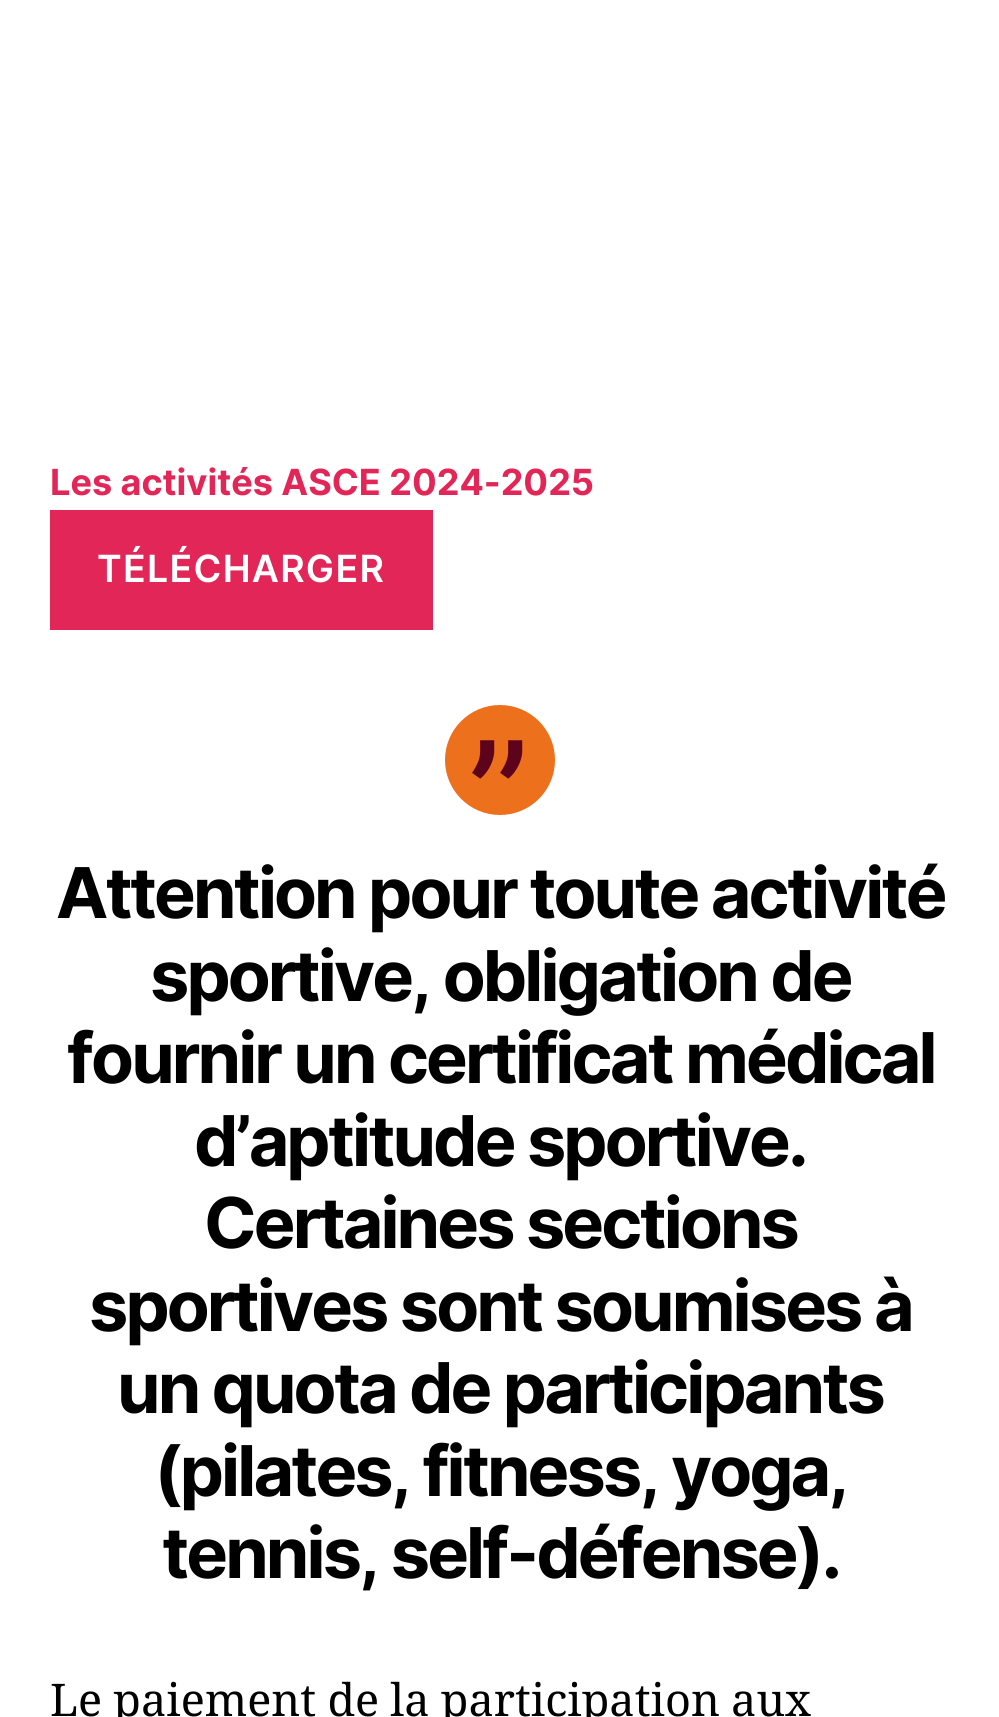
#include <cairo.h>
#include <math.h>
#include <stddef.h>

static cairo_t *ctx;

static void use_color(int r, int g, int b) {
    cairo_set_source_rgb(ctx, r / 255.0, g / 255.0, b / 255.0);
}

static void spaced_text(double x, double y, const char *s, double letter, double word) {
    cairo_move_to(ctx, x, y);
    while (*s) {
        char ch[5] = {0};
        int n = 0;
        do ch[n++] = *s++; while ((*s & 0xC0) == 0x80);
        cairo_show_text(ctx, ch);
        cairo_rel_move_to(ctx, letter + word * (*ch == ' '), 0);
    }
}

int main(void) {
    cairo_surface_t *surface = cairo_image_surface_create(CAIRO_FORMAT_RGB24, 999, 1717);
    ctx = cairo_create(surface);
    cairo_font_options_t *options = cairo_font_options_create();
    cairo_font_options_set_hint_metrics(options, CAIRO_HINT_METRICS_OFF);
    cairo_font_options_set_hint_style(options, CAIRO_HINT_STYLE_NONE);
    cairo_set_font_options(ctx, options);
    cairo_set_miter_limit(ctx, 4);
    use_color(255, 255, 255);
    cairo_paint(ctx);
    cairo_select_font_face(ctx, "Inter", CAIRO_FONT_SLANT_NORMAL, CAIRO_FONT_WEIGHT_BOLD);
    cairo_set_font_size(ctx, 36);
    use_color(226, 38, 88);
    cairo_move_to(ctx, 50, 495);
    cairo_show_text(ctx, "Les activités ASCE 2024-2025");
    cairo_rectangle(ctx, 50, 510, 383, 120);
    cairo_fill(ctx);
    cairo_select_font_face(ctx, "Inter SemiBold", CAIRO_FONT_SLANT_NORMAL, CAIRO_FONT_WEIGHT_NORMAL);
    cairo_set_font_size(ctx, 37.5);
    use_color(255, 255, 255);
    spaced_text(97, 582, "TÉLÉCHARGER", 1.25, 0);
    use_color(237, 112, 28);
    cairo_new_path(ctx);
    cairo_arc(ctx, 500, 760, 55, 0, 2 * M_PI);
    cairo_fill(ctx);
    cairo_select_font_face(ctx, "Inter Medium", CAIRO_FONT_SLANT_NORMAL, CAIRO_FONT_WEIGHT_NORMAL);
    cairo_set_font_size(ctx, 155);
    use_color(93, 3, 27);
    cairo_move_to(ctx, 469, 853);
    cairo_show_text(ctx, "”");
    cairo_select_font_face(ctx, "Inter", CAIRO_FONT_SLANT_NORMAL, CAIRO_FONT_WEIGHT_BOLD);
    cairo_set_font_size(ctx, 70);
    use_color(0, 0, 0);
    spaced_text(56, 918, "Attention pour toute activité", -2.9, 0);
    spaced_text(150, 1001, "sportive, obligation de", -2.9, 0);
    spaced_text(67, 1083, "fournir un certificat médical", -2.9, 0);
    spaced_text(194, 1166, "d’aptitude sportive.", -2.9, 0);
    spaced_text(204, 1248, "Certaines sections", -2.9, 0);
    spaced_text(89, 1331, "sportives sont soumises à", -2.9, 0);
    spaced_text(117, 1413, "un quota de participants", -2.9, 0);
    spaced_text(154, 1496, "(pilates, fitness, yoga,", -2.9, 0);
    spaced_text(162, 1578, "tennis, self-défense).", -2.9, 0);
    cairo_select_font_face(ctx, "Noto Serif", CAIRO_FONT_SLANT_NORMAL, CAIRO_FONT_WEIGHT_NORMAL);
    cairo_set_font_size(ctx, 45);
    spaced_text(50, 1716, "Le paiement de la participation aux", 0, -0.5);
    cairo_surface_write_to_png(surface, "result.png");
    cairo_font_options_destroy(options);
    cairo_destroy(ctx);
    cairo_surface_destroy(surface);
    return 0;
}
